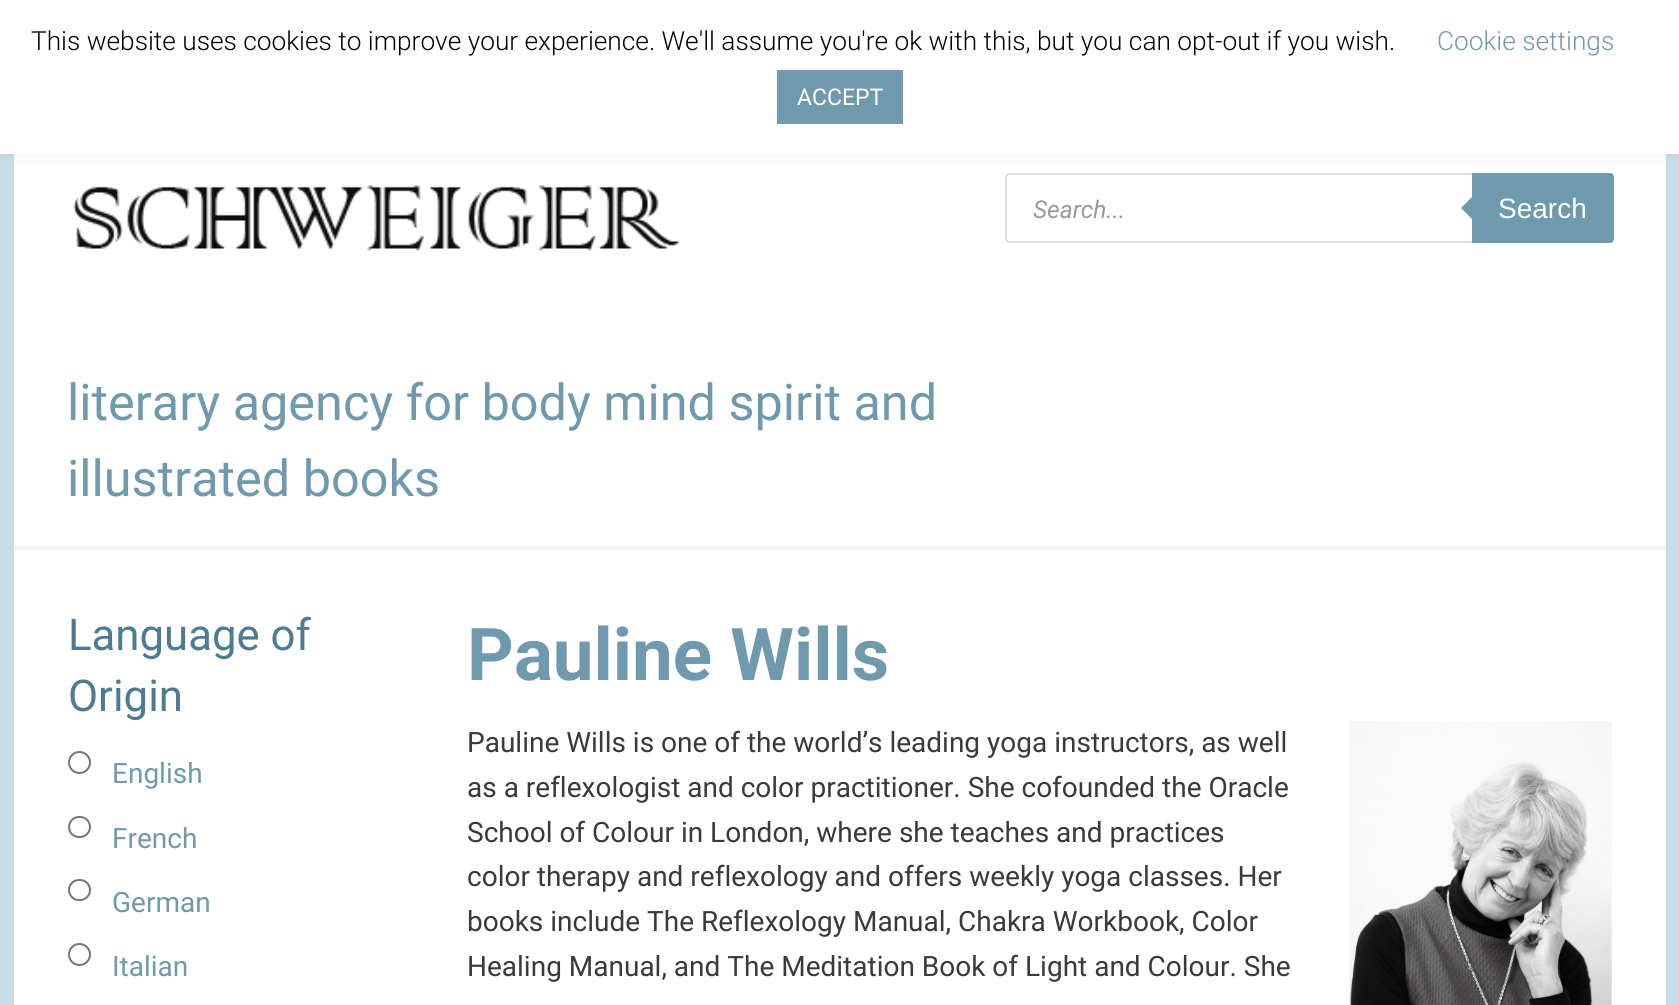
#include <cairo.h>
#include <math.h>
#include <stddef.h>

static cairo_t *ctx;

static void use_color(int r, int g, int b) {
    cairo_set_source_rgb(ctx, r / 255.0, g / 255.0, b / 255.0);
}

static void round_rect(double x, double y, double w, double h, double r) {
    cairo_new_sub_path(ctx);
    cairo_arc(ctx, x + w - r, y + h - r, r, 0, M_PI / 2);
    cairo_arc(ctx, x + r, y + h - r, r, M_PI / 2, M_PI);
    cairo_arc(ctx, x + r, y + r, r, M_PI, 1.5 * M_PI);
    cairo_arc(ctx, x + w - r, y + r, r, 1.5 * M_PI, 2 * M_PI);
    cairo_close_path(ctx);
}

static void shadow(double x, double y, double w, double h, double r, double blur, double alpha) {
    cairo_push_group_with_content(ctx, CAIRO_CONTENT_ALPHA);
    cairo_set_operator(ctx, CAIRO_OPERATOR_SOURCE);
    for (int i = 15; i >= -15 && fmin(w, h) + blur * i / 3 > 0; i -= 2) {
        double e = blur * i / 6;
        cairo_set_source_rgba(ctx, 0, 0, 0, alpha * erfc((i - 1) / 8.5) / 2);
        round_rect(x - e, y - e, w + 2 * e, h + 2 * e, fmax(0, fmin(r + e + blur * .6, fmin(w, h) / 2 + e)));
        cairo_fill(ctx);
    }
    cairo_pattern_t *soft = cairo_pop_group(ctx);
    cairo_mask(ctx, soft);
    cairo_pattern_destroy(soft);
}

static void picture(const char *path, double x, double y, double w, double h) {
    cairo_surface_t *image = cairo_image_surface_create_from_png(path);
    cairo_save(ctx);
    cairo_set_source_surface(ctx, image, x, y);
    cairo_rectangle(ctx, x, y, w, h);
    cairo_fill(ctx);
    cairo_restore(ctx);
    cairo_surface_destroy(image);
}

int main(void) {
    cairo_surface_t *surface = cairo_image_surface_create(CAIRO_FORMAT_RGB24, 1679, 1005);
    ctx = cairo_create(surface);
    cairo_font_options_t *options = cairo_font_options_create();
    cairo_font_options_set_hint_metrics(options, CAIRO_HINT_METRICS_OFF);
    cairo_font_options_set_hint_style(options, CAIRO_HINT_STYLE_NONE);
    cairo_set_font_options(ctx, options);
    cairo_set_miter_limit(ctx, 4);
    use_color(198, 221, 232);
    cairo_paint(ctx);
    use_color(255, 255, 255);
    cairo_rectangle(ctx, 14, 154, 1652, 392);
    cairo_fill(ctx);
    round_rect(1006, 174, 607, 68, 4);
    use_color(221, 221, 221);
    cairo_stroke(ctx);
    use_color(111, 153, 173);
    cairo_new_path(ctx);
    cairo_move_to(ctx, 1472, 173);
    cairo_line_to(ctx, 1610, 173);
    cairo_curve_to(ctx, 1612, 173, 1614, 175, 1614, 177);
    cairo_line_to(ctx, 1614, 239);
    cairo_curve_to(ctx, 1614, 241, 1612, 243, 1610, 243);
    cairo_line_to(ctx, 1472, 243);
    cairo_close_path(ctx);
    cairo_fill(ctx);
    use_color(172, 171, 171);
    shadow(0, -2, 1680, 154, 0, 9, 0.3);
    use_color(255, 255, 255);
    cairo_rectangle(ctx, 0, 0, 1679, 154);
    cairo_fill(ctx);
    cairo_select_font_face(ctx, "Roboto Light", CAIRO_FONT_SLANT_NORMAL, CAIRO_FONT_WEIGHT_NORMAL);
    cairo_set_font_size(ctx, 26.25);
    use_color(0, 0, 0);
    cairo_move_to(ctx, 31, 50);
    cairo_show_text(ctx, "This website uses cookies to improve your experience. We'll assume you're ok with this, but you can opt-out if you wish.");
    use_color(111, 153, 173);
    cairo_move_to(ctx, 1437, 50);
    cairo_show_text(ctx, "Cookie settings");
    cairo_rectangle(ctx, 777, 70, 126, 54);
    cairo_fill(ctx);
    cairo_select_font_face(ctx, "Roboto", CAIRO_FONT_SLANT_NORMAL, CAIRO_FONT_WEIGHT_NORMAL);
    cairo_set_font_size(ctx, 23);
    use_color(255, 255, 255);
    cairo_move_to(ctx, 797, 105);
    cairo_show_text(ctx, "ACCEPT");
    use_color(241, 245, 247);
    cairo_rectangle(ctx, 14, 546, 1652, 4);
    cairo_fill(ctx);
    cairo_select_font_face(ctx, "Roboto", CAIRO_FONT_SLANT_ITALIC, CAIRO_FONT_WEIGHT_NORMAL);
    cairo_set_font_size(ctx, 24.5);
    use_color(153, 153, 153);
    cairo_move_to(ctx, 1033, 218);
    cairo_show_text(ctx, "Search...");
    use_color(111, 153, 173);
    cairo_new_path(ctx);
    cairo_move_to(ctx, 1475, 194);
    cairo_line_to(ctx, 1475, 222);
    cairo_line_to(ctx, 1461, 208);
    cairo_close_path(ctx);
    cairo_fill(ctx);
    cairo_select_font_face(ctx, "Liberation Sans", CAIRO_FONT_SLANT_NORMAL, CAIRO_FONT_WEIGHT_NORMAL);
    cairo_set_font_size(ctx, 28);
    use_color(255, 255, 255);
    cairo_move_to(ctx, 1498, 218);
    cairo_show_text(ctx, "Search");
    picture("img1.png", 73, 185, 607, 66);
    cairo_select_font_face(ctx, "Roboto", CAIRO_FONT_SLANT_NORMAL, CAIRO_FONT_WEIGHT_NORMAL);
    cairo_set_font_size(ctx, 50.4);
    use_color(111, 153, 173);
    cairo_move_to(ctx, 67, 420);
    cairo_show_text(ctx, "literary agency for body mind spirit and");
    cairo_move_to(ctx, 67, 496);
    cairo_show_text(ctx, "illustrated books");
    use_color(255, 255, 255);
    cairo_rectangle(ctx, 14, 550, 1652, 455);
    cairo_fill(ctx);
    cairo_set_font_size(ctx, 43.75);
    use_color(77, 124, 146);
    cairo_move_to(ctx, 68, 650);
    cairo_show_text(ctx, "Language of");
    cairo_move_to(ctx, 68, 711);
    cairo_show_text(ctx, "Origin");
    cairo_new_path(ctx);
    cairo_arc(ctx, 79.5, 762.5, 10.5, 0, 2 * M_PI);
    use_color(118, 118, 118);
    cairo_stroke(ctx);
    cairo_set_font_size(ctx, 28);
    use_color(111, 153, 173);
    cairo_move_to(ctx, 112, 783);
    cairo_show_text(ctx, "English");
    round_rect(69, 817, 21, 20, 10);
    use_color(118, 118, 118);
    cairo_stroke(ctx);
    use_color(111, 153, 173);
    cairo_move_to(ctx, 112, 848);
    cairo_show_text(ctx, "French");
    round_rect(69, 880, 21, 20, 10);
    use_color(118, 118, 118);
    cairo_stroke(ctx);
    use_color(111, 153, 173);
    cairo_move_to(ctx, 112, 912);
    cairo_show_text(ctx, "German");
    cairo_new_path(ctx);
    cairo_arc(ctx, 79.5, 954.5, 10.5, 0, 2 * M_PI);
    use_color(118, 118, 118);
    cairo_stroke(ctx);
    use_color(111, 153, 173);
    cairo_move_to(ctx, 112, 976);
    cairo_show_text(ctx, "Italian");
    cairo_select_font_face(ctx, "Roboto", CAIRO_FONT_SLANT_NORMAL, CAIRO_FONT_WEIGHT_BOLD);
    cairo_set_font_size(ctx, 72.75);
    cairo_move_to(ctx, 467, 680);
    cairo_show_text(ctx, "Pauline Wills");
    cairo_select_font_face(ctx, "Roboto", CAIRO_FONT_SLANT_NORMAL, CAIRO_FONT_WEIGHT_NORMAL);
    cairo_set_font_size(ctx, 28);
    use_color(58, 58, 58);
    cairo_move_to(ctx, 467, 752);
    cairo_show_text(ctx, "Pauline Wills is one of the world’s leading yoga instructors, as well");
    cairo_move_to(ctx, 467, 797);
    cairo_show_text(ctx, "as a reflexologist and color practitioner. She cofounded the Oracle");
    cairo_move_to(ctx, 467, 842);
    cairo_show_text(ctx, "School of Colour in London, where she teaches and practices");
    cairo_move_to(ctx, 467, 886);
    cairo_show_text(ctx, "color therapy and reflexology and offers weekly yoga classes. Her");
    cairo_move_to(ctx, 467, 931);
    cairo_show_text(ctx, "books include The Reflexology Manual, Chakra Workbook, Color");
    cairo_move_to(ctx, 467, 976);
    cairo_show_text(ctx, "Healing Manual, and The Meditation Book of Light and Colour. She");
    picture("img2.png", 1349, 721, 263, 284);
    cairo_surface_write_to_png(surface, "result.png");
    cairo_font_options_destroy(options);
    cairo_destroy(ctx);
    cairo_surface_destroy(surface);
    return 0;
}
